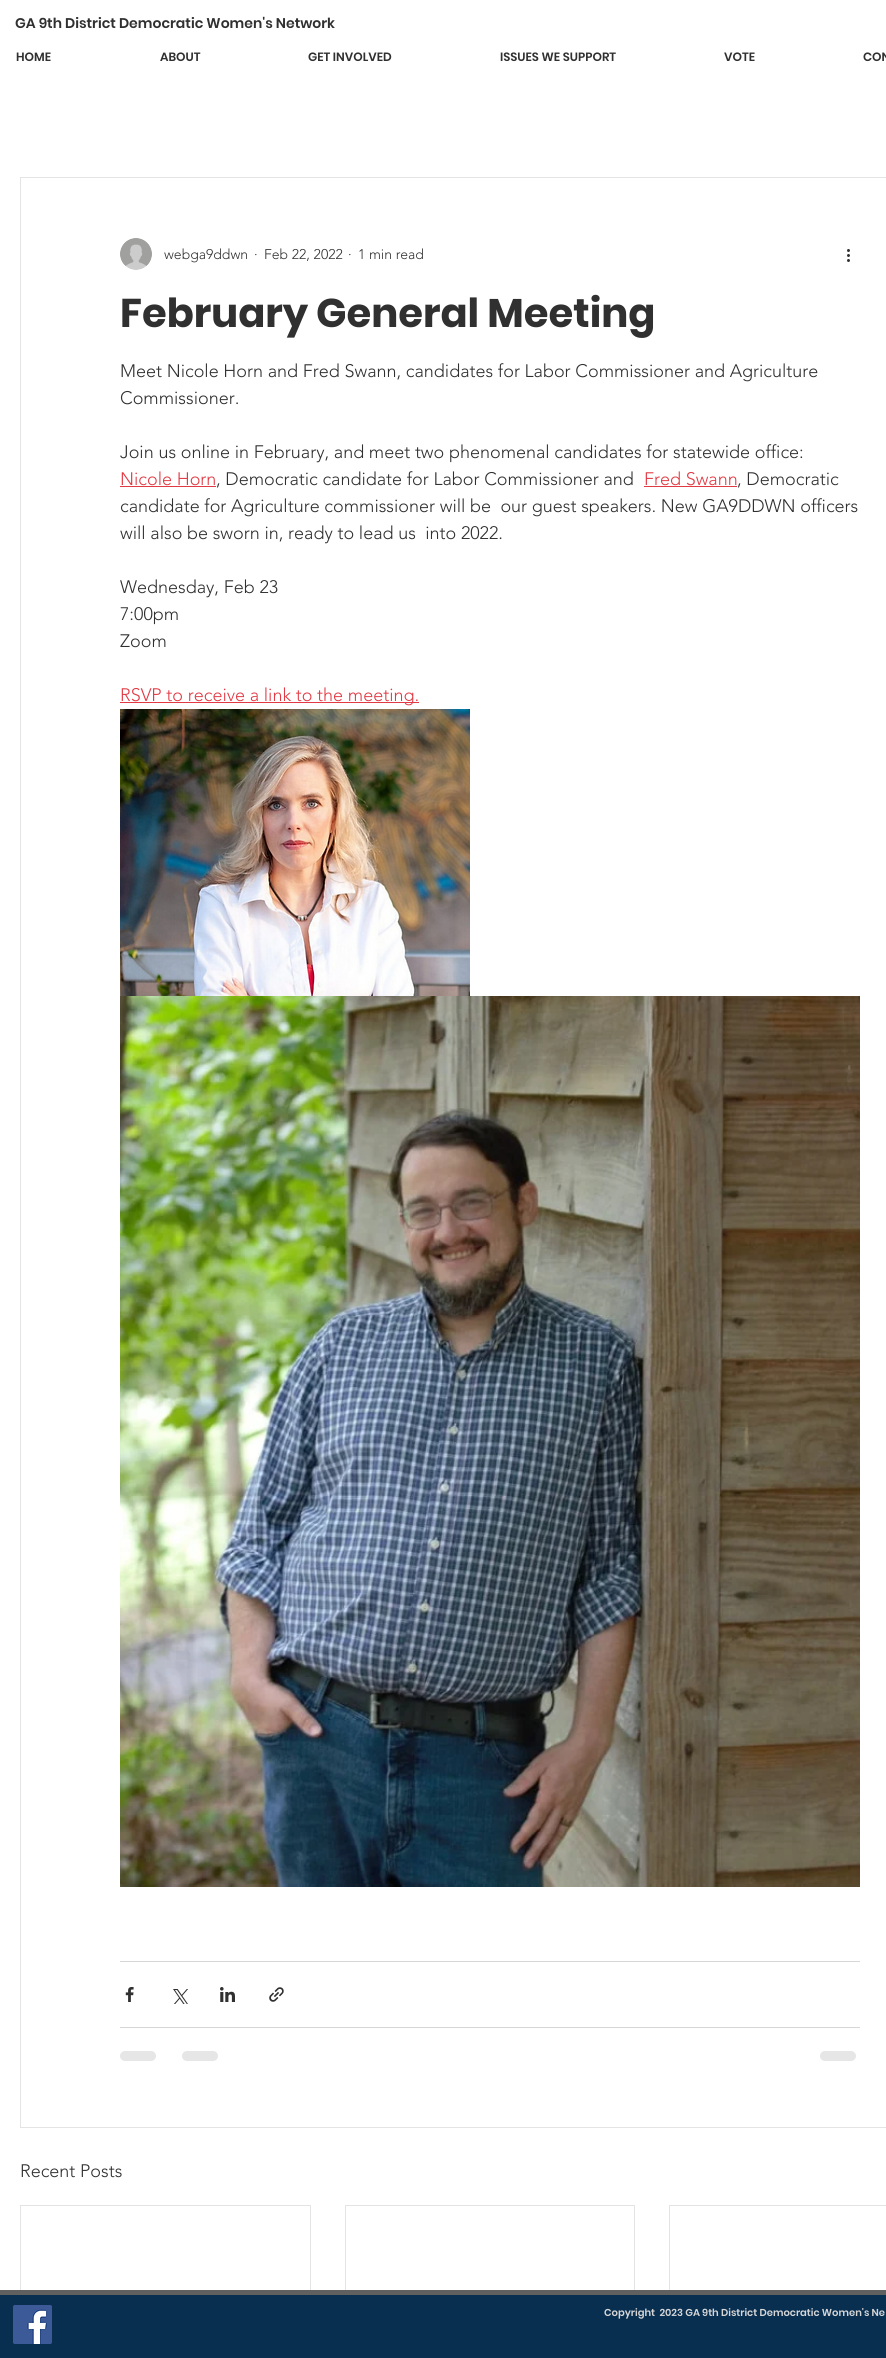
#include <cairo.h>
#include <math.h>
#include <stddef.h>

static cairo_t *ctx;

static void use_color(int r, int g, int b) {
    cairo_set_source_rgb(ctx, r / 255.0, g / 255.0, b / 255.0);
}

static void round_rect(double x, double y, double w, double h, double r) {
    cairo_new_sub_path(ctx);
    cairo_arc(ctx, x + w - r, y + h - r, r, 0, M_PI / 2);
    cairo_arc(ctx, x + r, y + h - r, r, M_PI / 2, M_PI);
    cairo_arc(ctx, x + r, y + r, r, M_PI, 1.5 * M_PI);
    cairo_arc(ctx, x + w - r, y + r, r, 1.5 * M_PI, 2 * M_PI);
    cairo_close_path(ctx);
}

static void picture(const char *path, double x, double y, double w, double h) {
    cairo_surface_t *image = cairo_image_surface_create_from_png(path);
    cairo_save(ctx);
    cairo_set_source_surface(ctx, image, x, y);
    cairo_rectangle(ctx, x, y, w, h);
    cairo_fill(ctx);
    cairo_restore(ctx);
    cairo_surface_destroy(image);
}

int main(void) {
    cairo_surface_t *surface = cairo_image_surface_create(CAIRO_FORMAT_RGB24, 886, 2358);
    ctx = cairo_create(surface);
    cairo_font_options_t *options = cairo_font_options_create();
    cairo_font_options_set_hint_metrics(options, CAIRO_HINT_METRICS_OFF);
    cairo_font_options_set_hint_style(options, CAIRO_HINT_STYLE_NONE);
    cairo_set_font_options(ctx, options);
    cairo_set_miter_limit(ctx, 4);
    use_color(255, 255, 255);
    cairo_paint(ctx);
    cairo_select_font_face(ctx, "Poppins SemiBold", CAIRO_FONT_SLANT_NORMAL, CAIRO_FONT_WEIGHT_NORMAL);
    cairo_set_font_size(ctx, 14);
    use_color(48, 48, 48);
    cairo_move_to(ctx, 15, 28);
    cairo_show_text(ctx, "GA 9th District Democratic Women's Network");
    cairo_set_font_size(ctx, 12);
    cairo_move_to(ctx, 16, 61);
    cairo_show_text(ctx, "HOME");
    cairo_move_to(ctx, 160, 61);
    cairo_show_text(ctx, "ABOUT");
    cairo_move_to(ctx, 308, 61);
    cairo_show_text(ctx, "GET INVOLVED");
    cairo_move_to(ctx, 500, 61);
    cairo_show_text(ctx, "ISSUES WE SUPPORT");
    cairo_move_to(ctx, 724, 61);
    cairo_show_text(ctx, "VOTE");
    cairo_move_to(ctx, 863, 61);
    cairo_show_text(ctx, "CON");
    cairo_rectangle(ctx, 20.5, 177.5, 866, 1950);
    use_color(228, 228, 228);
    cairo_set_line_width(ctx, 1);
    cairo_stroke(ctx);
    picture("img1.png", 120, 238, 32, 32);
    cairo_select_font_face(ctx, "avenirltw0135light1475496 Light", CAIRO_FONT_SLANT_NORMAL, CAIRO_FONT_WEIGHT_NORMAL);
    cairo_set_font_size(ctx, 14);
    use_color(48, 48, 48);
    cairo_move_to(ctx, 164, 259);
    cairo_show_text(ctx, "webga9ddwn");
    cairo_move_to(ctx, 254, 259);
    cairo_show_text(ctx, "·");
    cairo_move_to(ctx, 264, 259);
    cairo_show_text(ctx, "Feb 22, 2022");
    cairo_move_to(ctx, 348, 259);
    cairo_show_text(ctx, "·");
    cairo_move_to(ctx, 358, 259);
    cairo_show_text(ctx, "1 min read");
    picture("img2.png", 847, 249, 3, 13);
    cairo_select_font_face(ctx, "Poppins", CAIRO_FONT_SLANT_NORMAL, CAIRO_FONT_WEIGHT_BOLD);
    cairo_set_font_size(ctx, 40);
    cairo_move_to(ctx, 120, 327);
    cairo_show_text(ctx, "February General Meeting");
    cairo_select_font_face(ctx, "avenirltw0135light1475496 Light", CAIRO_FONT_SLANT_NORMAL, CAIRO_FONT_WEIGHT_NORMAL);
    cairo_set_font_size(ctx, 18);
    cairo_move_to(ctx, 120, 377);
    cairo_show_text(ctx, "Meet Nicole Horn and Fred Swann, candidates for Labor Commissioner and Agriculture");
    cairo_move_to(ctx, 120, 404);
    cairo_show_text(ctx, "Commissioner.");
    cairo_move_to(ctx, 120, 458);
    cairo_show_text(ctx, "Join us online in February, and meet two phenomenal candidates for statewide office:");
    use_color(225, 58, 68);
    cairo_move_to(ctx, 120, 485);
    cairo_show_text(ctx, "Nicole Horn");
    cairo_rectangle(ctx, 120, 486, 96, 1);
    cairo_fill(ctx);
    use_color(48, 48, 48);
    cairo_move_to(ctx, 216, 485);
    cairo_show_text(ctx, ", Democratic candidate for Labor Commissioner and");
    use_color(225, 58, 68);
    cairo_move_to(ctx, 644, 485);
    cairo_show_text(ctx, "Fred Swann");
    cairo_rectangle(ctx, 644, 486, 93, 1);
    cairo_fill(ctx);
    use_color(48, 48, 48);
    cairo_move_to(ctx, 737, 485);
    cairo_show_text(ctx, ", Democratic");
    cairo_move_to(ctx, 120, 512);
    cairo_show_text(ctx, "candidate for Agriculture commissioner will be  our guest speakers. New GA9DDWN officers");
    cairo_move_to(ctx, 120, 539);
    cairo_show_text(ctx, "will also be sworn in, ready to lead us  into 2022.");
    cairo_move_to(ctx, 120, 593);
    cairo_show_text(ctx, "Wednesday, Feb 23");
    cairo_move_to(ctx, 120, 620);
    cairo_show_text(ctx, "7:00pm");
    cairo_move_to(ctx, 120, 647);
    cairo_show_text(ctx, "Zoom");
    use_color(225, 58, 68);
    cairo_rectangle(ctx, 120, 702, 299, 1);
    cairo_fill(ctx);
    cairo_move_to(ctx, 120, 701);
    cairo_show_text(ctx, "RSVP to receive a link to the meeting.");
    picture("img3.png", 120, 709, 350, 287);
    picture("img4.png", 120, 996, 740, 891);
    use_color(214, 214, 214);
    cairo_rectangle(ctx, 120, 1961, 740, 1);
    cairo_fill(ctx);
    picture("img5.png", 125, 1987, 9, 15);
    picture("img6.png", 173, 1989, 15, 15);
    picture("img7.png", 220, 1987, 15, 15);
    picture("img8.png", 269, 1987, 15, 15);
    cairo_rectangle(ctx, 120, 2027, 740, 1);
    cairo_fill(ctx);
    use_color(230, 230, 230);
    round_rect(120, 2051, 36, 10, 5);
    cairo_fill(ctx);
    round_rect(182, 2051, 36, 10, 5);
    cairo_fill(ctx);
    round_rect(820, 2051, 36, 10, 5);
    cairo_fill(ctx);
    use_color(48, 48, 48);
    cairo_move_to(ctx, 20, 2177);
    cairo_show_text(ctx, "Recent Posts");
    cairo_rectangle(ctx, 20.5, 2205.5, 290, 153);
    use_color(228, 228, 228);
    cairo_stroke(ctx);
    cairo_rectangle(ctx, 345.5, 2205.5, 289, 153);
    cairo_stroke(ctx);
    cairo_rectangle(ctx, 669.5, 2205.5, 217, 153);
    cairo_stroke(ctx);
    use_color(8, 46, 80);
    cairo_rectangle(ctx, 0, 2295, 886, 63);
    cairo_fill(ctx);
    use_color(96, 96, 96);
    cairo_rectangle(ctx, 0, 2290, 886, 5);
    cairo_fill(ctx);
    picture("img9.png", 13, 2305, 39, 39);
    cairo_select_font_face(ctx, "Poppins SemiBold", CAIRO_FONT_SLANT_NORMAL, CAIRO_FONT_WEIGHT_NORMAL);
    cairo_set_font_size(ctx, 10);
    use_color(214, 214, 214);
    cairo_move_to(ctx, 604, 2316);
    cairo_show_text(ctx, "Copyright  2023 GA 9th District Democratic Women's Ne");
    cairo_surface_write_to_png(surface, "result.png");
    cairo_font_options_destroy(options);
    cairo_destroy(ctx);
    cairo_surface_destroy(surface);
    return 0;
}
